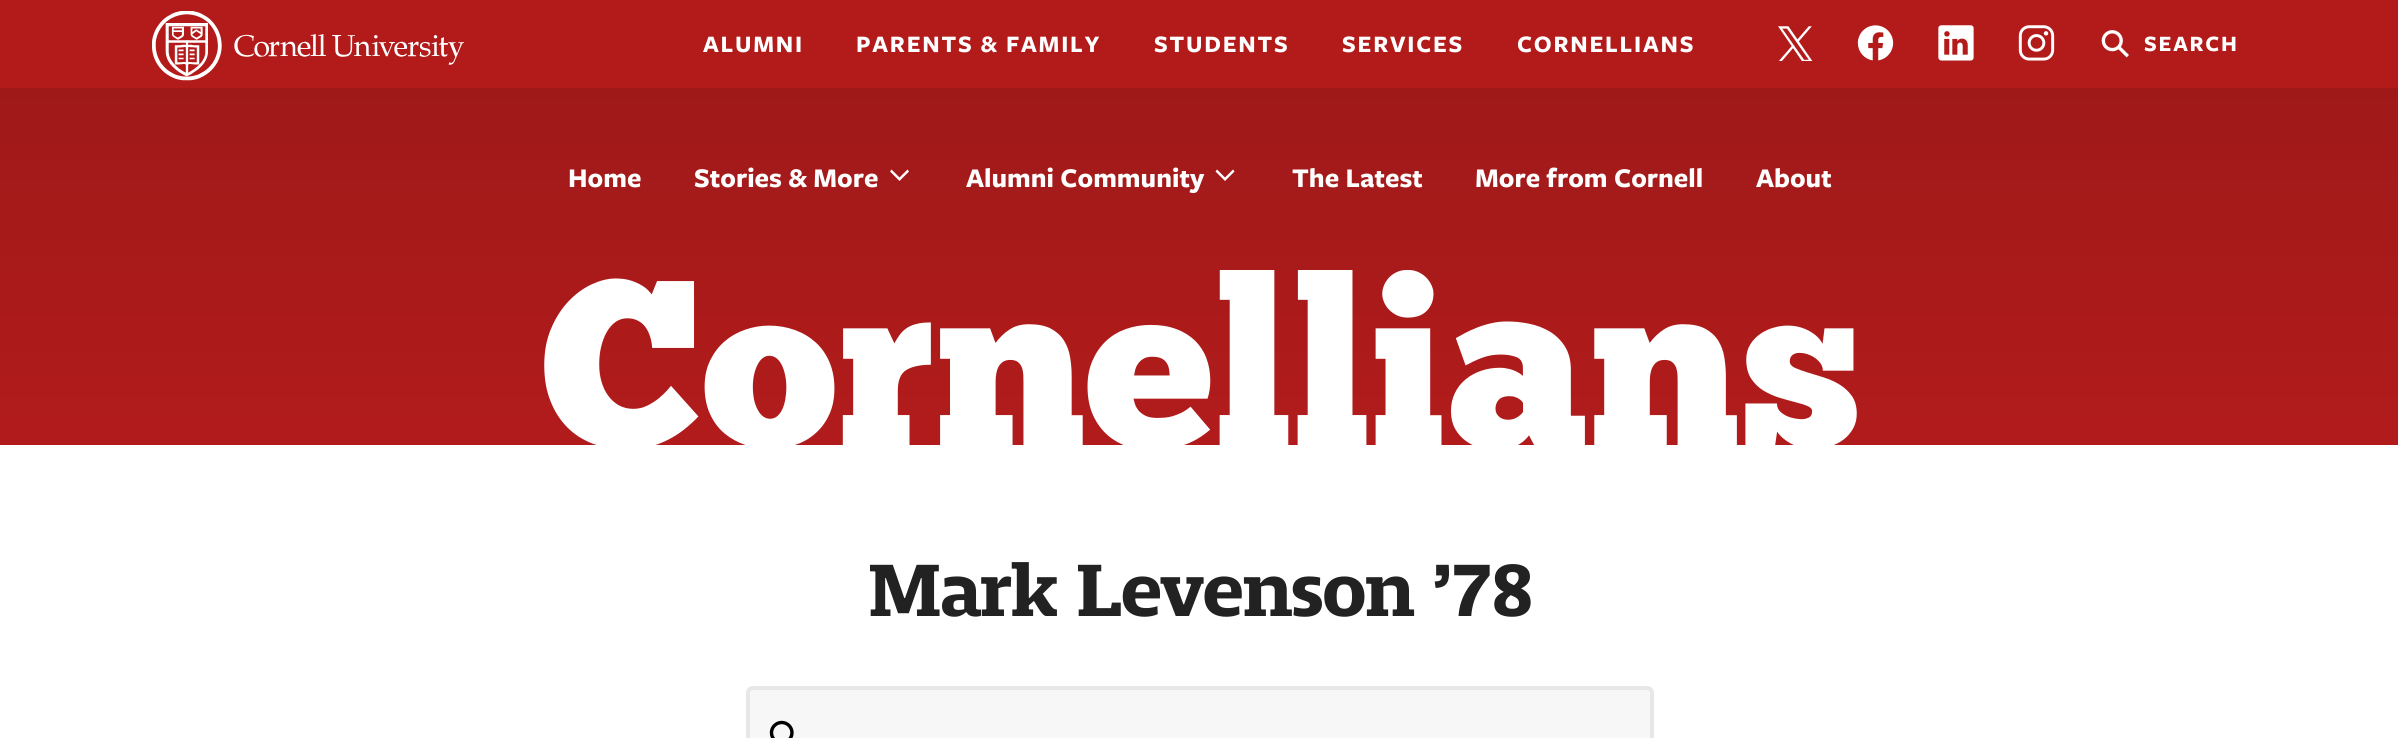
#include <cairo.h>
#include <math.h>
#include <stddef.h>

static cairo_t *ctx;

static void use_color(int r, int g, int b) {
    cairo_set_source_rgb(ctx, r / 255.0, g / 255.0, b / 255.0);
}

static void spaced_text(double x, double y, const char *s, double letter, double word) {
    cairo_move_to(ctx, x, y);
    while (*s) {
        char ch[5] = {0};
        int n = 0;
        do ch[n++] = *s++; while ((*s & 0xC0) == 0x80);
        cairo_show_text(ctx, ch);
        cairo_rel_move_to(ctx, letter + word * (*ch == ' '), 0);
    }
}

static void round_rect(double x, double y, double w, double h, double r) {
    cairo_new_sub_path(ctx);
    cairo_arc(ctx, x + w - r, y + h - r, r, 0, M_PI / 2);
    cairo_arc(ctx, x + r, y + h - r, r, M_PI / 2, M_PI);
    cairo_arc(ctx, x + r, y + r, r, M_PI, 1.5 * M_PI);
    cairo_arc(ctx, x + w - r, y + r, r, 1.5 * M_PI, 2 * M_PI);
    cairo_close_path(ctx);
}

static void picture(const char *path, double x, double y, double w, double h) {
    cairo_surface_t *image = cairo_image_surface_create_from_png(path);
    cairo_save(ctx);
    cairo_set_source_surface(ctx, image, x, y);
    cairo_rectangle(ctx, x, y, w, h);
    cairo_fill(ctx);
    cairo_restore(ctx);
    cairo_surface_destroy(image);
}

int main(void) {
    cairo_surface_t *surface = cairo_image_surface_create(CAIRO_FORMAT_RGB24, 2398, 738);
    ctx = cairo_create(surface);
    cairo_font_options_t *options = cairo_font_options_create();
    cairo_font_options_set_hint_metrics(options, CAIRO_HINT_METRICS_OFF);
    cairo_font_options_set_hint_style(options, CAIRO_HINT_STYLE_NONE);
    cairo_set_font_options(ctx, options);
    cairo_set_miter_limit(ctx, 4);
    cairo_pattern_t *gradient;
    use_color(255, 255, 255);
    cairo_paint(ctx);
    use_color(179, 27, 27);
    cairo_rectangle(ctx, 0, 0, 2398, 88);
    cairo_fill(ctx);
    picture("img1.png", 152, 11, 312, 70);
    cairo_select_font_face(ctx, "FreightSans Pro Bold", CAIRO_FONT_SLANT_NORMAL, CAIRO_FONT_WEIGHT_BOLD);
    cairo_set_font_size(ctx, 24.5);
    use_color(255, 255, 255);
    spaced_text(703, 52, "ALUMNI", 1.75, 0);
    spaced_text(856, 52, "PARENTS & FAMILY", 1.75, 0);
    spaced_text(1154, 52, "STUDENTS", 1.75, 0);
    spaced_text(1342, 52, "SERVICES", 1.75, 0);
    spaced_text(1517, 52, "CORNELLIANS", 1.75, 0);
    picture("img2.png", 1778, 26, 35, 35);
    picture("img3.png", 1857, 25, 37, 36);
    picture("img4.png", 1938, 25, 36, 36);
    picture("img5.png", 2018, 25, 37, 36);
    picture("img6.png", 2101, 30, 28, 28);
    cairo_set_font_size(ctx, 22.75);
    spaced_text(2144, 51, "SEARCH", 1.75, 0);
    gradient = cairo_pattern_create_linear(1200, 87, 1200, 445);
    cairo_pattern_add_color_stop_rgba(gradient, 0, 0.627, 0.098, 0.098, 1);
    cairo_pattern_add_color_stop_rgba(gradient, 1, 0.698, 0.106, 0.106, 1);
    cairo_set_source(ctx, gradient);
    cairo_pattern_destroy(gradient);
    cairo_rectangle(ctx, 0, 88, 2398, 357);
    cairo_fill(ctx);
    cairo_set_font_size(ctx, 28);
    use_color(255, 255, 255);
    cairo_move_to(ctx, 568, 187);
    cairo_show_text(ctx, "Home");
    cairo_move_to(ctx, 694, 187);
    cairo_show_text(ctx, "Stories & More");
    cairo_set_fill_rule(ctx, CAIRO_FILL_RULE_EVEN_ODD);
    cairo_new_path(ctx);
    cairo_move_to(ctx, 891.5, 169.5);
    cairo_line_to(ctx, 899.5, 177.5);
    cairo_line_to(ctx, 907.5, 169.5);
    cairo_line_to(ctx, 909, 171.5);
    cairo_line_to(ctx, 899.5, 181);
    cairo_line_to(ctx, 890, 171.5);
    cairo_close_path(ctx);
    cairo_fill(ctx);
    cairo_move_to(ctx, 966, 187);
    cairo_show_text(ctx, "Alumni Community");
    cairo_new_path(ctx);
    cairo_move_to(ctx, 1217, 169.5);
    cairo_line_to(ctx, 1225, 177.5);
    cairo_line_to(ctx, 1233, 169.5);
    cairo_line_to(ctx, 1234.5, 171.5);
    cairo_line_to(ctx, 1225, 181);
    cairo_line_to(ctx, 1215.5, 171.5);
    cairo_close_path(ctx);
    cairo_fill(ctx);
    cairo_move_to(ctx, 1292, 187);
    cairo_show_text(ctx, "The Latest");
    cairo_move_to(ctx, 1475, 187);
    cairo_show_text(ctx, "More from Cornell");
    cairo_move_to(ctx, 1756, 187);
    cairo_show_text(ctx, "About");
    picture("img7.png", 544, 270, 1313, 175);
    cairo_select_font_face(ctx, "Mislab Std", CAIRO_FONT_SLANT_NORMAL, CAIRO_FONT_WEIGHT_BOLD);
    cairo_set_font_size(ctx, 77);
    use_color(34, 34, 34);
    spaced_text(868, 616, "Mark Levenson ’78", -1.75, 0);
    use_color(247, 247, 247);
    round_rect(748, 688, 904, 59, 5);
    cairo_fill_preserve(ctx);
    use_color(231, 231, 231);
    cairo_set_line_width(ctx, 4);
    cairo_stroke(ctx);
    picture("img8.png", 769, 720, 25, 18);
    cairo_surface_write_to_png(surface, "result.png");
    cairo_font_options_destroy(options);
    cairo_destroy(ctx);
    cairo_surface_destroy(surface);
    return 0;
}
